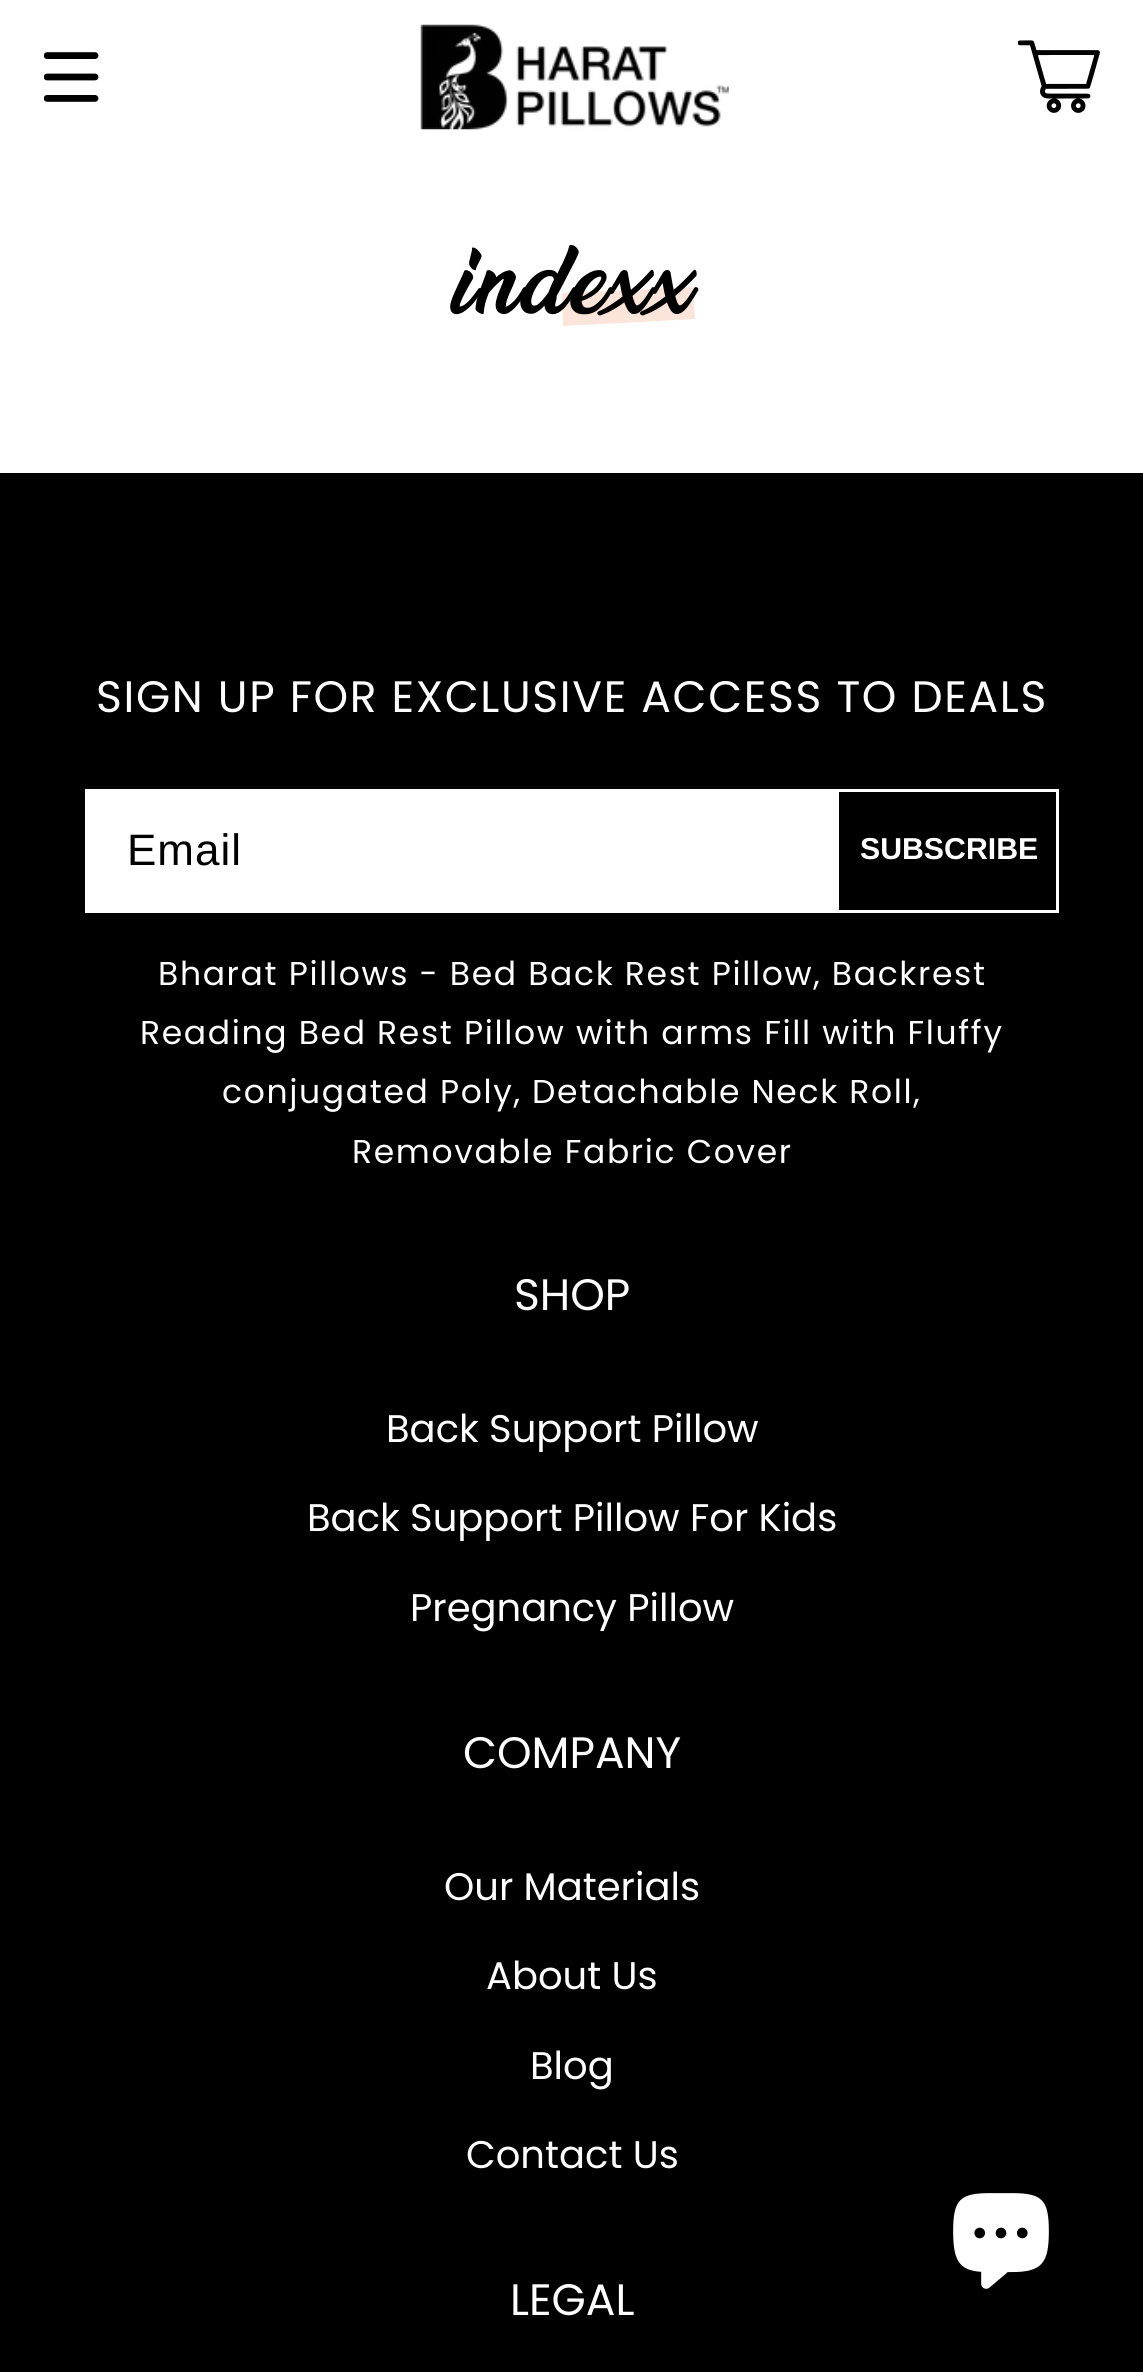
#include <cairo.h>
#include <math.h>
#include <stddef.h>

static cairo_t *ctx;

static void use_color(int r, int g, int b) {
    cairo_set_source_rgb(ctx, r / 255.0, g / 255.0, b / 255.0);
}

static void spaced_text(double x, double y, const char *s, double letter, double word) {
    cairo_move_to(ctx, x, y);
    while (*s) {
        char ch[5] = {0};
        int n = 0;
        do ch[n++] = *s++; while ((*s & 0xC0) == 0x80);
        cairo_show_text(ctx, ch);
        cairo_rel_move_to(ctx, letter + word * (*ch == ' '), 0);
    }
}

static void picture(const char *path, double x, double y, double w, double h) {
    cairo_surface_t *image = cairo_image_surface_create_from_png(path);
    cairo_save(ctx);
    cairo_set_source_surface(ctx, image, x, y);
    cairo_rectangle(ctx, x, y, w, h);
    cairo_fill(ctx);
    cairo_restore(ctx);
    cairo_surface_destroy(image);
}

int main(void) {
    cairo_surface_t *surface = cairo_image_surface_create(CAIRO_FORMAT_RGB24, 1143, 2372);
    ctx = cairo_create(surface);
    cairo_font_options_t *options = cairo_font_options_create();
    cairo_font_options_set_hint_metrics(options, CAIRO_HINT_METRICS_OFF);
    cairo_font_options_set_hint_style(options, CAIRO_HINT_STYLE_NONE);
    cairo_set_font_options(ctx, options);
    cairo_set_miter_limit(ctx, 4);
    use_color(255, 255, 255);
    cairo_paint(ctx);
    picture("img1.png", 44, 52, 55, 50);
    picture("img2.png", 420, 24, 309, 106);
    picture("img3.png", 1018, 40, 82, 73);
    use_color(251, 228, 217);
    cairo_new_path(ctx);
    cairo_move_to(ctx, 562, 293);
    cairo_line_to(ctx, 693, 287);
    cairo_line_to(ctx, 695, 319);
    cairo_line_to(ctx, 563, 326);
    cairo_close_path(ctx);
    cairo_fill(ctx);
    cairo_select_font_face(ctx, "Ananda", CAIRO_FONT_SLANT_NORMAL, CAIRO_FONT_WEIGHT_BOLD);
    cairo_set_font_size(ctx, 82.5);
    use_color(0, 0, 0);
    spaced_text(452, 314, "indexx", 2.25, 0);
    cairo_rectangle(ctx, 0, 473, 1143, 1899);
    cairo_fill(ctx);
    cairo_select_font_face(ctx, "Poppins", CAIRO_FONT_SLANT_NORMAL, CAIRO_FONT_WEIGHT_NORMAL);
    cairo_set_font_size(ctx, 44);
    use_color(255, 255, 255);
    spaced_text(96, 712, "SIGN UP FOR EXCLUSIVE ACCESS TO DEALS", 1.65, 0);
    cairo_rectangle(ctx, 88, 792, 751, 118);
    cairo_fill(ctx);
    cairo_rectangle(ctx, 86.5, 790.5, 971, 121);
    cairo_set_line_width(ctx, 3);
    cairo_stroke(ctx);
    cairo_select_font_face(ctx, "Liberation Sans", CAIRO_FONT_SLANT_NORMAL, CAIRO_FONT_WEIGHT_NORMAL);
    use_color(0, 0, 0);
    spaced_text(127, 865, "Email", 1, 0);
    cairo_select_font_face(ctx, "Liberation Sans", CAIRO_FONT_SLANT_NORMAL, CAIRO_FONT_WEIGHT_BOLD);
    cairo_set_font_size(ctx, 30.25);
    use_color(255, 255, 255);
    cairo_move_to(ctx, 860, 859);
    cairo_show_text(ctx, "SUBSCRIBE");
    cairo_select_font_face(ctx, "Poppins", CAIRO_FONT_SLANT_NORMAL, CAIRO_FONT_WEIGHT_NORMAL);
    cairo_set_font_size(ctx, 33);
    spaced_text(158, 985, "Bharat Pillows - Bed Back Rest Pillow, Backrest", 1.65, 0);
    spaced_text(140, 1044, "Reading Bed Rest Pillow with arms Fill with Fluffy", 1.65, 0);
    spaced_text(222, 1103, "conjugated Poly, Detachable Neck Roll,", 1.65, 0);
    spaced_text(352, 1163, "Removable Fabric Cover", 1.65, 0);
    cairo_set_font_size(ctx, 44);
    cairo_move_to(ctx, 514, 1310);
    cairo_show_text(ctx, "SHOP");
    cairo_set_font_size(ctx, 38.5);
    cairo_move_to(ctx, 386, 1442);
    cairo_show_text(ctx, "Back Support Pillow");
    cairo_move_to(ctx, 307, 1531);
    cairo_show_text(ctx, "Back Support Pillow For Kids");
    cairo_move_to(ctx, 410, 1621);
    cairo_show_text(ctx, "Pregnancy Pillow");
    cairo_set_font_size(ctx, 44);
    cairo_move_to(ctx, 463, 1768);
    cairo_show_text(ctx, "COMPANY");
    cairo_set_font_size(ctx, 38.5);
    cairo_move_to(ctx, 444, 1900);
    cairo_show_text(ctx, "Our Materials");
    cairo_move_to(ctx, 486, 1989);
    cairo_show_text(ctx, "About Us");
    cairo_move_to(ctx, 530, 2079);
    cairo_show_text(ctx, "Blog");
    cairo_move_to(ctx, 466, 2168);
    cairo_show_text(ctx, "Contact Us");
    cairo_set_font_size(ctx, 44);
    cairo_move_to(ctx, 510, 2315);
    cairo_show_text(ctx, "LEGAL");
    picture("img4.png", 953, 2193, 96, 96);
    cairo_surface_write_to_png(surface, "result.png");
    cairo_font_options_destroy(options);
    cairo_destroy(ctx);
    cairo_surface_destroy(surface);
    return 0;
}
